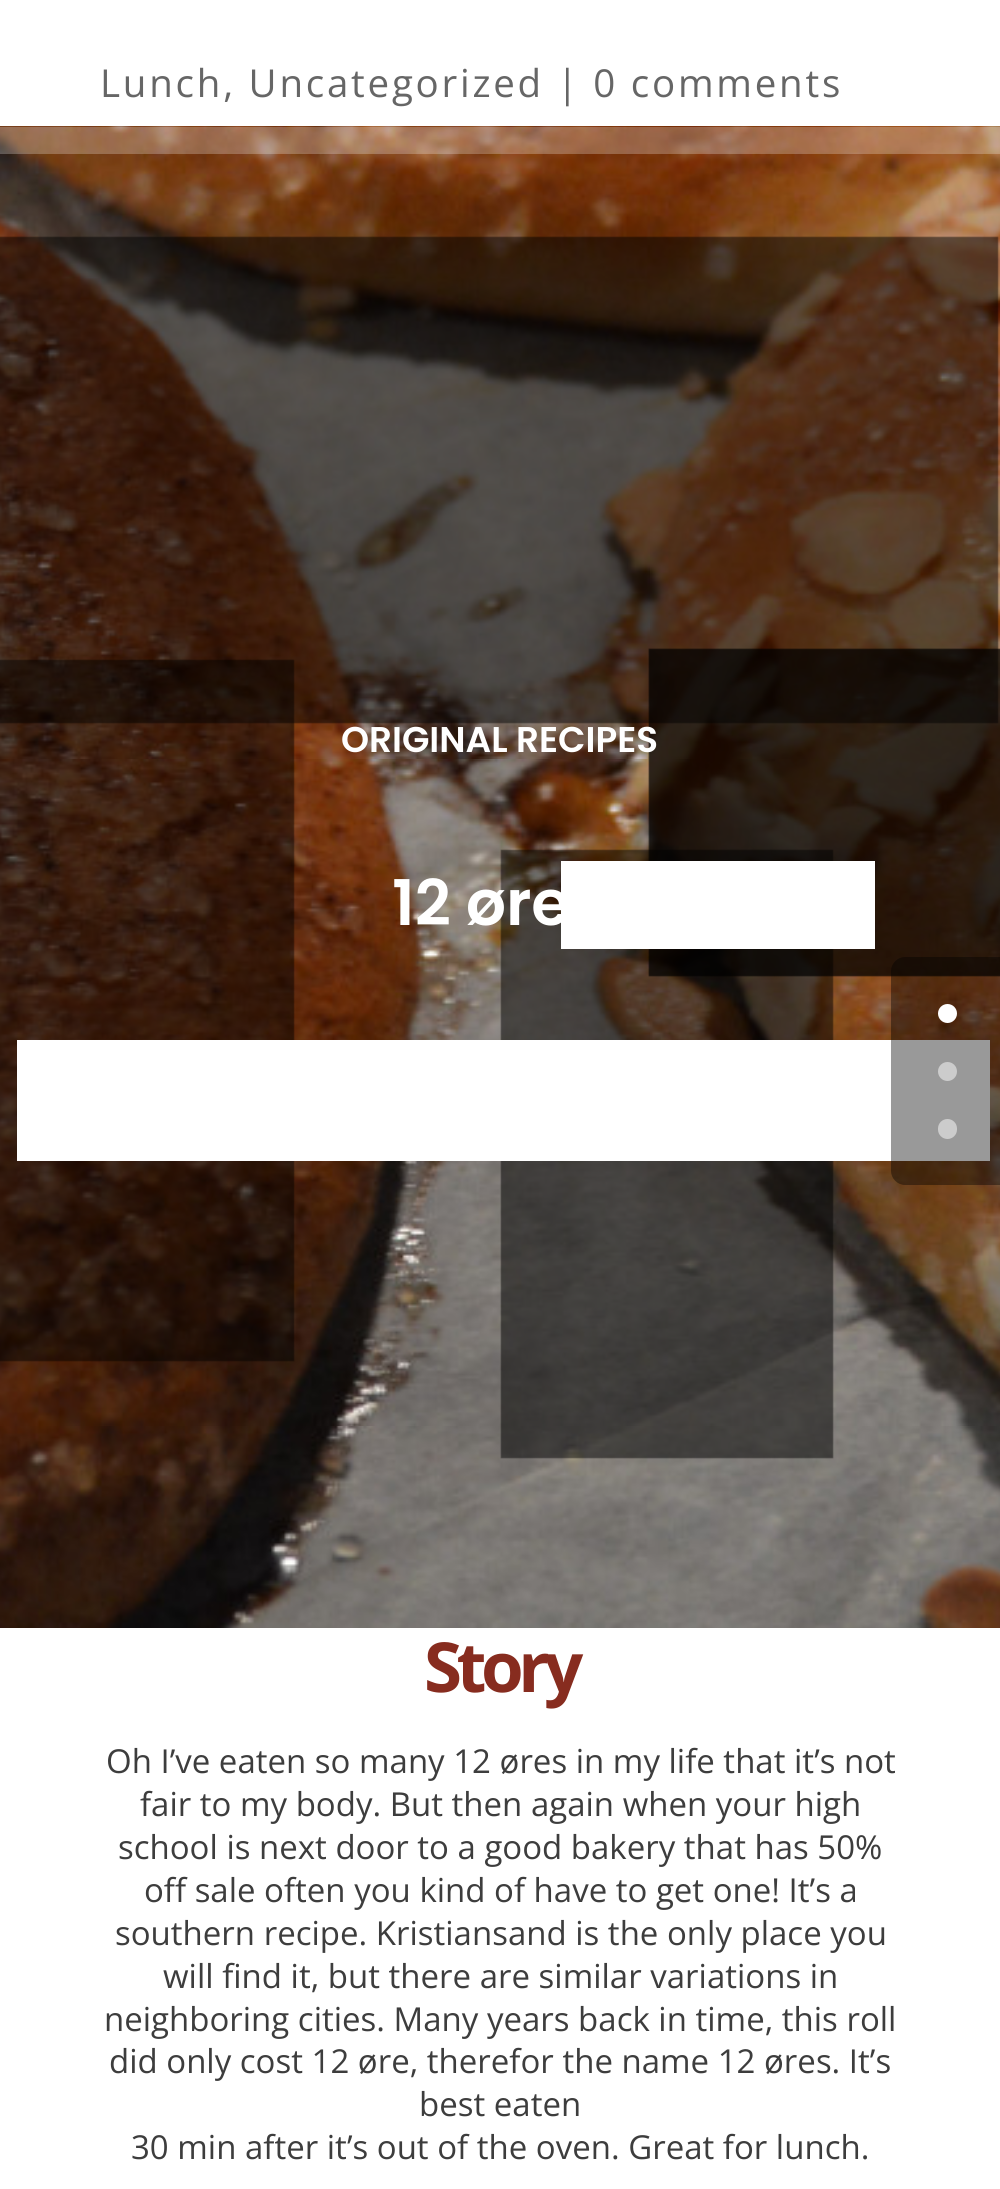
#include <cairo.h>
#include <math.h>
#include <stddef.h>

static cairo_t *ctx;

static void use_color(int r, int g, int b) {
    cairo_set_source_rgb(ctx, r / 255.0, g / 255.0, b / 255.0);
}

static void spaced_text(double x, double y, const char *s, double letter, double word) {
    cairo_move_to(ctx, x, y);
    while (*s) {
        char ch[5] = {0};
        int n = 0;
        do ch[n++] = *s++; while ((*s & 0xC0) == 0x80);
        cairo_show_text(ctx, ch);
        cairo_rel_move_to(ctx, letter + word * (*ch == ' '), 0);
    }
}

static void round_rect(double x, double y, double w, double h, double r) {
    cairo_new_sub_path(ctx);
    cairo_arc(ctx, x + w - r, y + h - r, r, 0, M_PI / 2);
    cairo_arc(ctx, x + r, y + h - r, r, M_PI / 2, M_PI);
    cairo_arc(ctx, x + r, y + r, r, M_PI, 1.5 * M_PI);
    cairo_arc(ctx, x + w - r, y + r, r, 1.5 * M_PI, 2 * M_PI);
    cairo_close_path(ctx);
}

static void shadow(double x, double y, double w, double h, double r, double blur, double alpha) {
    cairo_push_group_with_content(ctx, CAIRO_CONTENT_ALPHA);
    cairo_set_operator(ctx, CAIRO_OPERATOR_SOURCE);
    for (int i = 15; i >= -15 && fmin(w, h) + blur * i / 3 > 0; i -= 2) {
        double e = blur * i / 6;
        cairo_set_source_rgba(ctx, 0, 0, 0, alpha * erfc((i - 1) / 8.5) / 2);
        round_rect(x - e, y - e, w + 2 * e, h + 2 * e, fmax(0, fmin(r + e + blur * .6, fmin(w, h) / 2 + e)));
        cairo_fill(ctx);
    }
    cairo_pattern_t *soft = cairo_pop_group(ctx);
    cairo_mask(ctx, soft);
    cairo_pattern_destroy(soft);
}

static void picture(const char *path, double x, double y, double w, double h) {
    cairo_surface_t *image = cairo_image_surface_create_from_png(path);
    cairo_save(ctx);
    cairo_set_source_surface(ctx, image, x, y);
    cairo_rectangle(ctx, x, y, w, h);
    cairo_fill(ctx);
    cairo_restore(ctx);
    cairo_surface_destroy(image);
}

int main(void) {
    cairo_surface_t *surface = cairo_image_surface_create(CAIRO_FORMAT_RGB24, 1000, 2189);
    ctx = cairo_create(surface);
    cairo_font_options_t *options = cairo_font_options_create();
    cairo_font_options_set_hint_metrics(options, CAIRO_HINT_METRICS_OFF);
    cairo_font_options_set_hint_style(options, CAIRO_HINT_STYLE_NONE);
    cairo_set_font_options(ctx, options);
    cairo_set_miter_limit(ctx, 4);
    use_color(255, 255, 255);
    cairo_paint(ctx);
    cairo_select_font_face(ctx, "Open Sans", CAIRO_FONT_SLANT_NORMAL, CAIRO_FONT_WEIGHT_NORMAL);
    cairo_set_font_size(ctx, 38.5);
    use_color(102, 102, 102);
    spaced_text(100, 97, "Lunch, Uncategorized | 0 comments", 2.75, 0);
    picture("img1.png", 0, 126, 1000, 1502);
    cairo_set_source_rgba(ctx, 1, 1, 1, 0.25);
    cairo_rectangle(ctx, 0, 127, 1000, 27);
    cairo_fill(ctx);
    use_color(0, 0, 0);
    shadow(-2, 237, 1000, 486, 0, 0.5, 0.5);
    shadow(649, 649, 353, 327, 0, 0.5, 0.49);
    shadow(-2, 660, 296, 701, 0, 0.5, 0.5);
    shadow(649, 649, 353, 327, 0, 0.5, 0.49);
    cairo_select_font_face(ctx, "Poppins SemiBold", CAIRO_FONT_SLANT_NORMAL, CAIRO_FONT_WEIGHT_NORMAL);
    cairo_set_font_size(ctx, 35.75);
    use_color(255, 255, 255);
    cairo_move_to(ctx, 341, 752);
    cairo_show_text(ctx, "ORIGINAL RECIPES");
    use_color(0, 0, 0);
    shadow(501, 850, 332, 608, 0, 0.5, 0.5);
    cairo_set_font_size(ctx, 63);
    use_color(255, 255, 255);
    cairo_move_to(ctx, 392, 925);
    cairo_show_text(ctx, "12 øre");
    cairo_rectangle(ctx, 561, 861, 314, 88);
    cairo_fill(ctx);
    cairo_rectangle(ctx, 17, 1040, 973, 121);
    cairo_fill(ctx);
    cairo_select_font_face(ctx, "Open Sans", CAIRO_FONT_SLANT_NORMAL, CAIRO_FONT_WEIGHT_BOLD);
    cairo_set_font_size(ctx, 69);
    use_color(135, 44, 31);
    spaced_text(424, 1692, "Story", -5.5, 0);
    cairo_select_font_face(ctx, "Open Sans", CAIRO_FONT_SLANT_NORMAL, CAIRO_FONT_WEIGHT_NORMAL);
    cairo_set_font_size(ctx, 33);
    use_color(61, 61, 61);
    cairo_move_to(ctx, 106, 1773);
    cairo_show_text(ctx, "Oh I’ve eaten so many 12 øres in my life that it’s not");
    cairo_move_to(ctx, 140, 1816);
    cairo_show_text(ctx, "fair to my body. But then again when your high");
    cairo_move_to(ctx, 118, 1859);
    cairo_show_text(ctx, "school is next door to a good bakery that has 50%");
    cairo_move_to(ctx, 144, 1902);
    cairo_show_text(ctx, "off sale often you kind of have to get one! It’s a");
    cairo_move_to(ctx, 115, 1945);
    cairo_show_text(ctx, "southern recipe. Kristiansand is the only place you");
    cairo_move_to(ctx, 163, 1988);
    cairo_show_text(ctx, "will find it, but there are similar variations in");
    cairo_move_to(ctx, 104, 2031);
    cairo_show_text(ctx, "neighboring cities. Many years back in time, this roll");
    cairo_move_to(ctx, 109, 2073);
    cairo_show_text(ctx, "did only cost 12 øre, therefor the name 12 øres. It’s");
    cairo_move_to(ctx, 419, 2116);
    cairo_show_text(ctx, "best eaten");
    cairo_move_to(ctx, 131, 2159);
    cairo_show_text(ctx, "30 min after it’s out of the oven. Great for lunch.");
    cairo_set_source_rgba(ctx, 0, 0, 0, 0.4);
    cairo_new_path(ctx);
    cairo_move_to(ctx, 905, 957);
    cairo_line_to(ctx, 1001, 957);
    cairo_line_to(ctx, 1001, 1185);
    cairo_line_to(ctx, 905, 1185);
    cairo_curve_to(ctx, 897.5, 1185, 891, 1178.5, 891, 1171);
    cairo_line_to(ctx, 891, 971);
    cairo_curve_to(ctx, 891, 963.5, 897.5, 957, 905, 957);
    cairo_close_path(ctx);
    cairo_fill(ctx);
    use_color(255, 255, 255);
    cairo_arc(ctx, 947.5, 1013.5, 9.5, 0, 2 * M_PI);
    cairo_fill(ctx);
    use_color(204, 204, 204);
    cairo_arc(ctx, 947.5, 1071.5, 9.5, 0, 2 * M_PI);
    cairo_fill(ctx);
    round_rect(938, 1119, 19, 20, 9.5);
    cairo_fill(ctx);
    cairo_surface_write_to_png(surface, "result.png");
    cairo_font_options_destroy(options);
    cairo_destroy(ctx);
    cairo_surface_destroy(surface);
    return 0;
}
